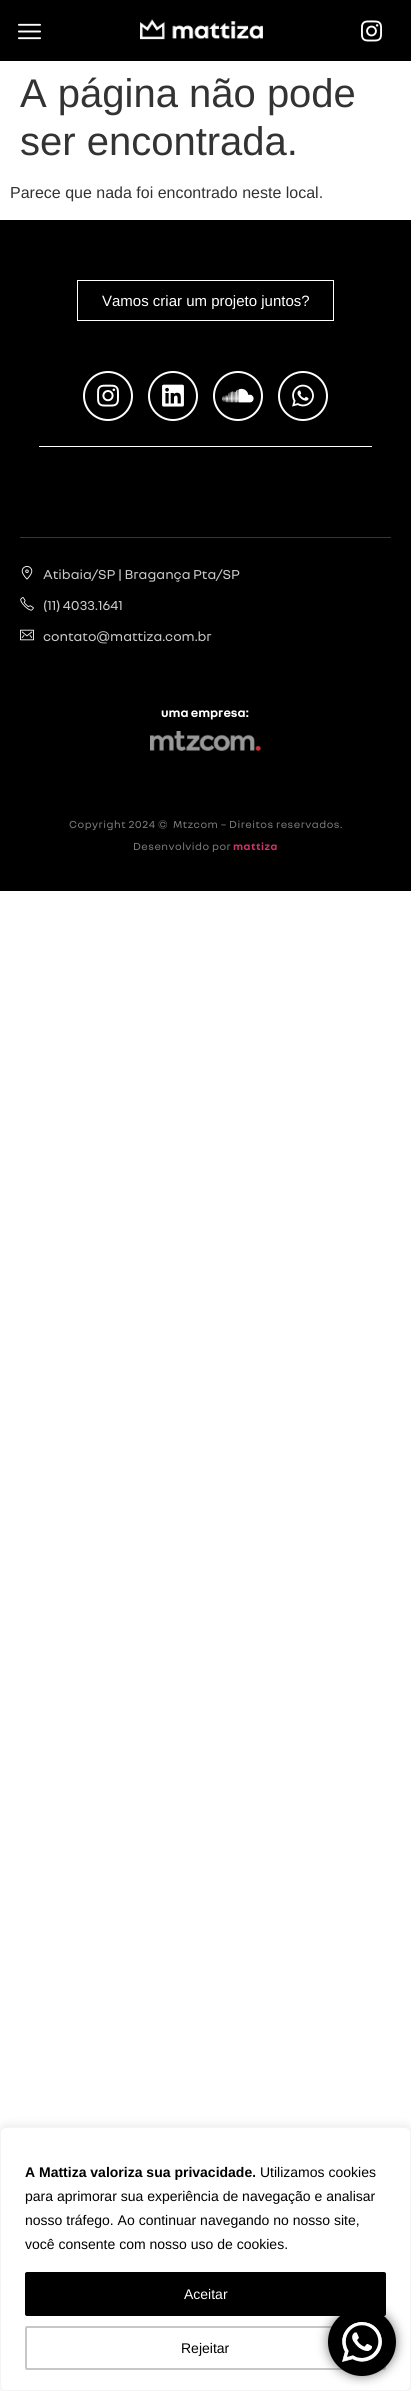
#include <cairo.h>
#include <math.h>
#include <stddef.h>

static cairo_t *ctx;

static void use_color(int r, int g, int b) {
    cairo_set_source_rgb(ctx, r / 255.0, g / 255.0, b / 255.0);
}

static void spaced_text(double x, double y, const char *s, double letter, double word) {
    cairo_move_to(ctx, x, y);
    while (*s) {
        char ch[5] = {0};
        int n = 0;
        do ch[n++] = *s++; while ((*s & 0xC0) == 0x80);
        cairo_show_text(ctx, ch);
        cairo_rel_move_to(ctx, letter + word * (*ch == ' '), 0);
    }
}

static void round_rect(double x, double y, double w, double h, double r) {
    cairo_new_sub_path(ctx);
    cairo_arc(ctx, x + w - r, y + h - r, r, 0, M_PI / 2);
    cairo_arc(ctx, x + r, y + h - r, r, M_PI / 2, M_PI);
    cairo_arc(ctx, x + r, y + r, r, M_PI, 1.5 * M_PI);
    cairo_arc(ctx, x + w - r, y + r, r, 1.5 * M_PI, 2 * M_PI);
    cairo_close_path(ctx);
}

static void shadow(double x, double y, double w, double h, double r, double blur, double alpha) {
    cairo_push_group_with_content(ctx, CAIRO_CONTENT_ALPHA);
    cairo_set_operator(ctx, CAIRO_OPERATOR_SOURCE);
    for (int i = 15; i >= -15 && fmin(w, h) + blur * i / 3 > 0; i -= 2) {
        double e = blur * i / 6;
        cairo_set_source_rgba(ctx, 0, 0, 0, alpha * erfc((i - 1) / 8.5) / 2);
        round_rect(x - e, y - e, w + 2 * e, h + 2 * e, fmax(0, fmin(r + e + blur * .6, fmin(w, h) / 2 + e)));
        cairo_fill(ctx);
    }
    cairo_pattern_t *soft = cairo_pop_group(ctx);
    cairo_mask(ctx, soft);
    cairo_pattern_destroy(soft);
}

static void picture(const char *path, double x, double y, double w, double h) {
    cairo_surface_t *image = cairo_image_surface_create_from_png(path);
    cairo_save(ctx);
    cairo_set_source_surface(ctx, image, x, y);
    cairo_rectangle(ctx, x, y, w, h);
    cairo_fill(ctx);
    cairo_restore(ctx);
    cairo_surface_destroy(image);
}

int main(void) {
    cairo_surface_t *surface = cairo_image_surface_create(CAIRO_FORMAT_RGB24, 411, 2391);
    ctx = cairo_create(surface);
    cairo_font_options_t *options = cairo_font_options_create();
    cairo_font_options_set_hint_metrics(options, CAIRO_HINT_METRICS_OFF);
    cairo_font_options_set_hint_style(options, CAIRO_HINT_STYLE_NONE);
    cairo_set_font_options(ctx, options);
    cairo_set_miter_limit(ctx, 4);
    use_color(255, 255, 255);
    cairo_paint(ctx);
    use_color(0, 0, 0);
    cairo_rectangle(ctx, 0, 0, 411, 61);
    cairo_fill(ctx);
    picture("img1.png", 18, 23, 23, 17);
    picture("img2.png", 140, 19, 123, 21);
    picture("img3.png", 361, 20, 22, 22);
    cairo_select_font_face(ctx, "Liberation Sans", CAIRO_FONT_SLANT_NORMAL, CAIRO_FONT_WEIGHT_NORMAL);
    cairo_set_font_size(ctx, 40);
    use_color(51, 51, 51);
    cairo_move_to(ctx, 20, 107);
    cairo_show_text(ctx, "A página não pode");
    cairo_move_to(ctx, 20, 155);
    cairo_show_text(ctx, "ser encontrada.");
    cairo_set_font_size(ctx, 16);
    cairo_move_to(ctx, 10, 198);
    cairo_show_text(ctx, "Parece que nada foi encontrado neste local.");
    use_color(0, 0, 0);
    cairo_rectangle(ctx, 0, 220, 411, 671);
    cairo_fill(ctx);
    cairo_rectangle(ctx, 77.5, 280.5, 256, 40);
    use_color(255, 255, 255);
    cairo_set_line_width(ctx, 1);
    cairo_stroke(ctx);
    cairo_set_font_size(ctx, 15);
    cairo_move_to(ctx, 102, 306);
    cairo_show_text(ctx, "Vamos criar um projeto juntos?");
    cairo_new_path(ctx);
    cairo_arc(ctx, 108, 396, 24, 0, 2 * M_PI);
    cairo_set_line_width(ctx, 2);
    cairo_stroke(ctx);
    picture("img4.png", 97, 384, 22, 23);
    cairo_arc(ctx, 173, 396, 24, 0, 2 * M_PI);
    cairo_stroke(ctx);
    picture("img5.png", 162, 384, 22, 23);
    cairo_arc(ctx, 238, 396, 24, 0, 2 * M_PI);
    cairo_stroke(ctx);
    picture("img6.png", 222, 388, 32, 15);
    cairo_arc(ctx, 303, 396, 24, 0, 2 * M_PI);
    cairo_stroke(ctx);
    picture("img7.png", 292, 384, 22, 23);
    cairo_rectangle(ctx, 39, 446, 333, 1);
    cairo_fill(ctx);
    use_color(54, 54, 54);
    cairo_rectangle(ctx, 20, 537, 371, 1);
    cairo_fill(ctx);
    picture("img8.png", 21, 566, 12, 14);
    cairo_select_font_face(ctx, "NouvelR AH", CAIRO_FONT_SLANT_NORMAL, CAIRO_FONT_WEIGHT_NORMAL);
    cairo_set_font_size(ctx, 14);
    use_color(202, 202, 202);
    cairo_move_to(ctx, 43, 579);
    cairo_show_text(ctx, "Atibaia/SP | Bragança Pta/SP");
    picture("img9.png", 20, 597, 14, 14);
    cairo_move_to(ctx, 43, 610);
    cairo_show_text(ctx, "(11) 4033.1641");
    picture("img10.png", 20, 629, 14, 12);
    cairo_move_to(ctx, 43, 641);
    cairo_show_text(ctx, "contato@mattiza.com.br");
    cairo_select_font_face(ctx, "NouvelR AH", CAIRO_FONT_SLANT_NORMAL, CAIRO_FONT_WEIGHT_BOLD);
    cairo_set_font_size(ctx, 13);
    use_color(255, 255, 255);
    cairo_move_to(ctx, 161, 717);
    cairo_show_text(ctx, "uma empresa:");
    picture("img11.png", 150, 731, 111, 20);
    cairo_select_font_face(ctx, "NouvelR AH", CAIRO_FONT_SLANT_NORMAL, CAIRO_FONT_WEIGHT_NORMAL);
    cairo_set_font_size(ctx, 11);
    use_color(122, 122, 122);
    spaced_text(69, 828, "Copyright 2024 ©  Mtzcom – Direitos reservados.", 0.5, 0);
    spaced_text(133, 850, "Desenvolvido por", 0.5, 0);
    cairo_select_font_face(ctx, "NouvelR AH", CAIRO_FONT_SLANT_NORMAL, CAIRO_FONT_WEIGHT_BOLD);
    use_color(204, 51, 102);
    spaced_text(233, 850, "mattiza", 0.5, 0);
    use_color(172, 171, 171);
    shadow(0, 2126, 411, 264, 6, 5, 0.3);
    use_color(255, 255, 255);
    round_rect(0.5, 2127.5, 410, 263, 5.5);
    cairo_fill_preserve(ctx);
    use_color(244, 244, 244);
    cairo_set_line_width(ctx, 1);
    cairo_stroke(ctx);
    cairo_select_font_face(ctx, "Liberation Sans", CAIRO_FONT_SLANT_NORMAL, CAIRO_FONT_WEIGHT_BOLD);
    cairo_set_font_size(ctx, 14);
    use_color(0, 0, 0);
    cairo_move_to(ctx, 25, 2177);
    cairo_show_text(ctx, "A Mattiza valoriza sua privacidade.");
    cairo_select_font_face(ctx, "Liberation Sans", CAIRO_FONT_SLANT_NORMAL, CAIRO_FONT_WEIGHT_NORMAL);
    cairo_move_to(ctx, 260, 2177);
    cairo_show_text(ctx, "Utilizamos cookies");
    cairo_move_to(ctx, 25, 2201);
    cairo_show_text(ctx, "para aprimorar sua experiência de navegação e analisar");
    cairo_move_to(ctx, 25, 2225);
    cairo_show_text(ctx, "nosso tráfego. Ao continuar navegando no nosso site,");
    cairo_move_to(ctx, 25, 2249);
    cairo_show_text(ctx, "você consente com nosso uso de cookies.");
    round_rect(26, 2273, 359, 42, 1);
    cairo_fill_preserve(ctx);
    cairo_set_line_width(ctx, 2);
    cairo_stroke(ctx);
    use_color(255, 255, 255);
    cairo_move_to(ctx, 184, 2299);
    cairo_show_text(ctx, "Aceitar");
    round_rect(26, 2327, 359, 42, 1);
    use_color(199, 199, 199);
    cairo_stroke(ctx);
    use_color(0, 0, 0);
    cairo_move_to(ctx, 181, 2353);
    cairo_show_text(ctx, "Rejeitar");
    use_color(0, 0, 0);
    shadow(328, 2308, 68, 68, 34, 5.5, 0.5);
    use_color(0, 0, 0);
    cairo_arc(ctx, 362, 2342, 34, 0, 2 * M_PI);
    cairo_fill(ctx);
    picture("img12.png", 342, 2322, 40, 40);
    cairo_surface_write_to_png(surface, "result.png");
    cairo_font_options_destroy(options);
    cairo_destroy(ctx);
    cairo_surface_destroy(surface);
    return 0;
}
